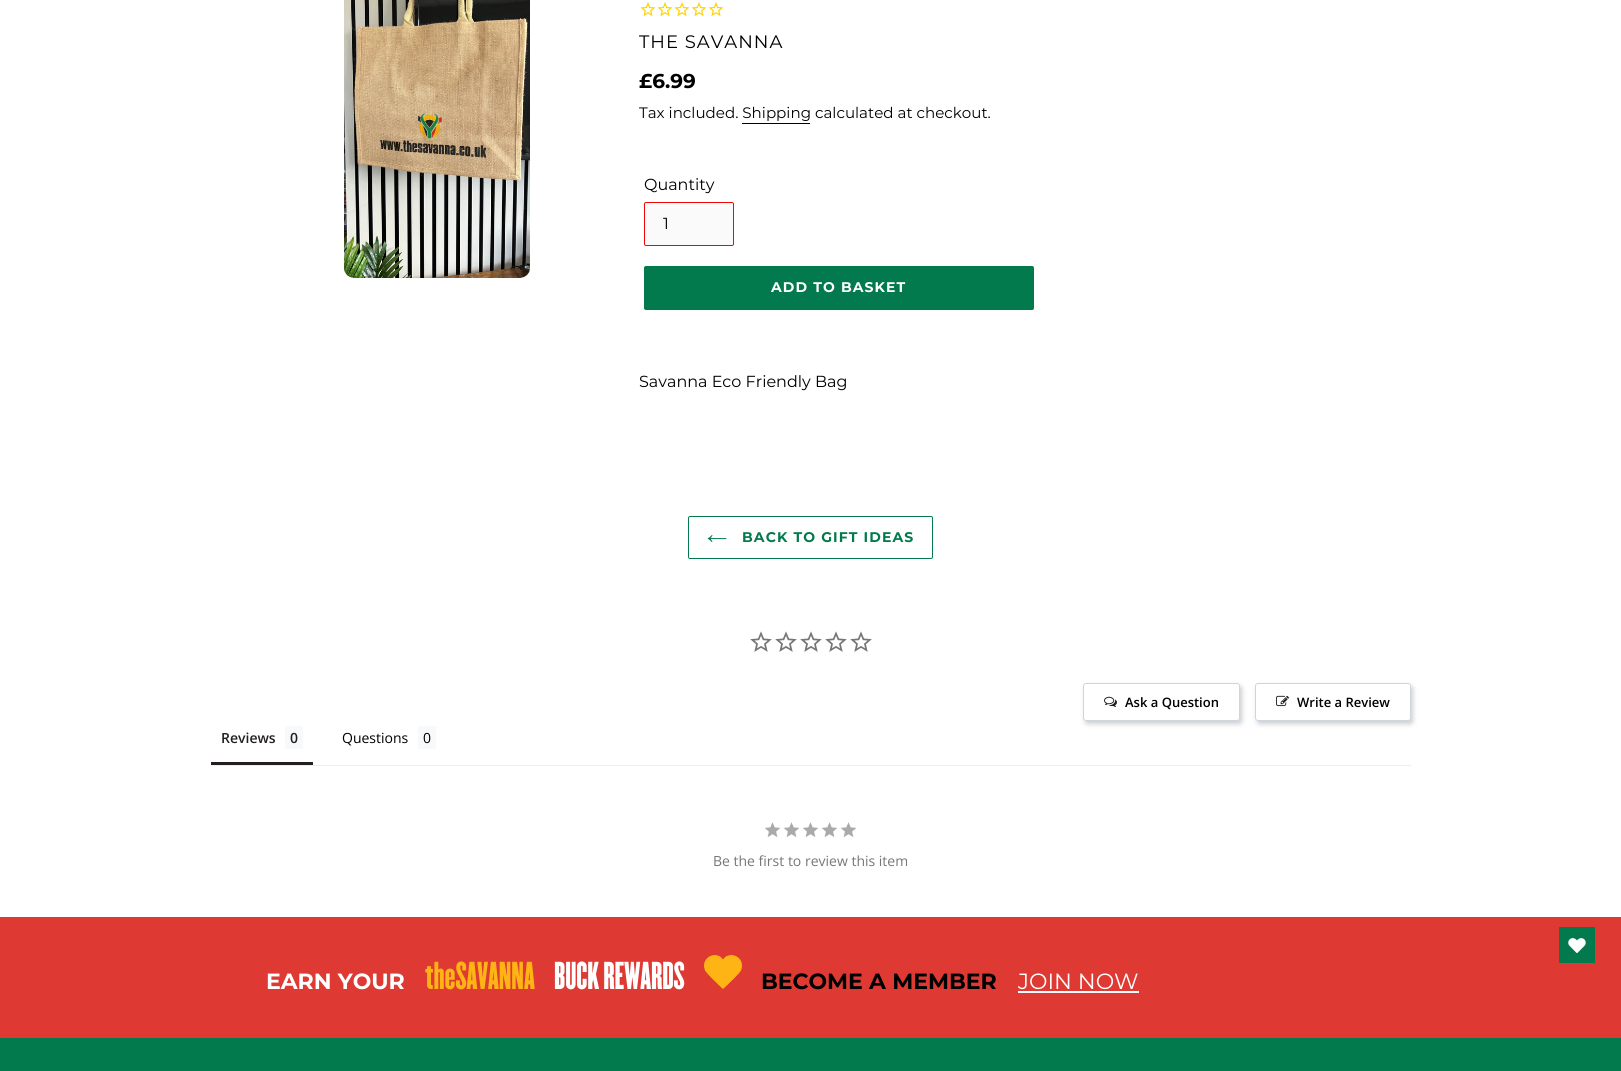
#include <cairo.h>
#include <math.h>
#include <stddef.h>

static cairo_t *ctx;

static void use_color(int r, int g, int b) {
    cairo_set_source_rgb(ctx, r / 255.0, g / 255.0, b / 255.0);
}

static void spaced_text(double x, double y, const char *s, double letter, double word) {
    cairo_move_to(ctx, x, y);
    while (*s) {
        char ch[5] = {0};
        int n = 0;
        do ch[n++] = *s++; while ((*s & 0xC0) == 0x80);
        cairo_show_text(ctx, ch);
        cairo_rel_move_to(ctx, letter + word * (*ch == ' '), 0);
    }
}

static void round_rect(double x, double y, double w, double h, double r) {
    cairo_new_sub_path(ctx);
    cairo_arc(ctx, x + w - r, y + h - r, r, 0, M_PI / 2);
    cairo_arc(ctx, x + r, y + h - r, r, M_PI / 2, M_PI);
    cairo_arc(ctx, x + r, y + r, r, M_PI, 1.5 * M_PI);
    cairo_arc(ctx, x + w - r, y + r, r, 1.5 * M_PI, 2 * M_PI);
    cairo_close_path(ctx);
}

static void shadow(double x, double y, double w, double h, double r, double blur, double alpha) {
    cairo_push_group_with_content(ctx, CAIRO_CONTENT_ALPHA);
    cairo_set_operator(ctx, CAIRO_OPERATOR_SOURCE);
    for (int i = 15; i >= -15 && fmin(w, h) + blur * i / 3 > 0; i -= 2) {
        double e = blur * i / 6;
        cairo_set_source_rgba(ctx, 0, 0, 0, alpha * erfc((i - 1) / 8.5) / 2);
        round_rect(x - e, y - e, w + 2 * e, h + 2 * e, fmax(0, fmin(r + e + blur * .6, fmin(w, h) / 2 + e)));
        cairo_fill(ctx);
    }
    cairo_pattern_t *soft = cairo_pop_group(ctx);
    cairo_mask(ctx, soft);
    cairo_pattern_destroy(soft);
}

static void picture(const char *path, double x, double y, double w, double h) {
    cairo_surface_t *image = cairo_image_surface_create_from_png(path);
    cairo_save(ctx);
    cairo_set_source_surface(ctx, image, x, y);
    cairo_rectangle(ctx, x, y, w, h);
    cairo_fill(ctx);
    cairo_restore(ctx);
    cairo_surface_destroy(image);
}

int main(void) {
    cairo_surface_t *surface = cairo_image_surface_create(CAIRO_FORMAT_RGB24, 1621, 1071);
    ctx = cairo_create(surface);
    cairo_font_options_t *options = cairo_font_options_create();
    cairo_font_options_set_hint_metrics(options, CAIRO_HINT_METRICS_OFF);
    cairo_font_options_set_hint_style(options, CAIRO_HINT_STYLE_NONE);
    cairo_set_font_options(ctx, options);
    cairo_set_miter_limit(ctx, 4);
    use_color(255, 255, 255);
    cairo_paint(ctx);
    picture("img1.png", 344, 0, 186, 278);
    picture("img2.png", 640, 2, 16, 15);
    picture("img2.png", 657, 2, 16, 15);
    picture("img2.png", 674, 2, 16, 15);
    picture("img2.png", 691, 2, 16, 15);
    picture("img2.png", 708, 2, 16, 15);
    cairo_select_font_face(ctx, "Montserrat", CAIRO_FONT_SLANT_NORMAL, CAIRO_FONT_WEIGHT_NORMAL);
    cairo_set_font_size(ctx, 18);
    use_color(0, 0, 0);
    spaced_text(639, 48, "THE SAVANNA", 1, 0);
    cairo_select_font_face(ctx, "Montserrat", CAIRO_FONT_SLANT_NORMAL, CAIRO_FONT_WEIGHT_BOLD);
    cairo_set_font_size(ctx, 20);
    cairo_move_to(ctx, 639, 88);
    cairo_show_text(ctx, "£6.99");
    cairo_select_font_face(ctx, "Montserrat", CAIRO_FONT_SLANT_NORMAL, CAIRO_FONT_WEIGHT_NORMAL);
    cairo_set_font_size(ctx, 15.1);
    cairo_move_to(ctx, 639, 118);
    cairo_show_text(ctx, "Tax included. Shipping calculated at checkout.");
    cairo_rectangle(ctx, 742, 123, 68, 1);
    cairo_fill(ctx);
    cairo_set_font_size(ctx, 16);
    cairo_move_to(ctx, 644, 190);
    cairo_show_text(ctx, "Quantity");
    use_color(250, 250, 250);
    round_rect(644.5, 202.5, 89, 43, 1.5);
    cairo_fill_preserve(ctx);
    use_color(245, 6, 6);
    cairo_set_line_width(ctx, 1);
    cairo_stroke(ctx);
    use_color(0, 0, 0);
    cairo_move_to(ctx, 663, 229);
    cairo_show_text(ctx, "1");
    use_color(3, 122, 77);
    round_rect(644.5, 266.5, 389, 43, 1.5);
    cairo_fill_preserve(ctx);
    cairo_stroke(ctx);
    cairo_select_font_face(ctx, "Montserrat", CAIRO_FONT_SLANT_NORMAL, CAIRO_FONT_WEIGHT_BOLD);
    cairo_set_font_size(ctx, 14);
    use_color(255, 255, 255);
    spaced_text(771, 292, "ADD TO BASKET", 1.1, 0);
    cairo_select_font_face(ctx, "Montserrat", CAIRO_FONT_SLANT_NORMAL, CAIRO_FONT_WEIGHT_NORMAL);
    cairo_set_font_size(ctx, 16);
    use_color(0, 0, 0);
    cairo_move_to(ctx, 639, 387);
    cairo_show_text(ctx, "Savanna Eco Friendly Bag");
    round_rect(688.5, 516.5, 244, 42, 1.5);
    use_color(3, 122, 77);
    cairo_stroke(ctx);
    picture("img3.png", 707, 535, 20, 8);
    cairo_select_font_face(ctx, "Montserrat", CAIRO_FONT_SLANT_NORMAL, CAIRO_FONT_WEIGHT_BOLD);
    cairo_set_font_size(ctx, 14);
    spaced_text(742, 542, "BACK TO GIFT IDEAS", 1.1, 0);
    picture("img4.png", 750, 631, 22, 21);
    picture("img4.png", 775, 631, 22, 21);
    picture("img4.png", 800, 631, 22, 21);
    picture("img4.png", 825, 631, 22, 21);
    picture("img4.png", 850, 631, 22, 21);
    cairo_save(ctx);
    cairo_set_fill_rule(ctx, CAIRO_FILL_RULE_EVEN_ODD);
    cairo_new_path(ctx);
    cairo_move_to(ctx, 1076, 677);
    cairo_line_to(ctx, 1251, 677);
    cairo_line_to(ctx, 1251, 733);
    cairo_line_to(ctx, 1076, 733);
    cairo_close_path(ctx);
    cairo_move_to(ctx, 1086, 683);
    cairo_line_to(ctx, 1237, 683);
    cairo_curve_to(ctx, 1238.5, 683, 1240, 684.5, 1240, 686);
    cairo_line_to(ctx, 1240, 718);
    cairo_curve_to(ctx, 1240, 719.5, 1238.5, 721, 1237, 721);
    cairo_line_to(ctx, 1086, 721);
    cairo_curve_to(ctx, 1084.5, 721, 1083, 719.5, 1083, 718);
    cairo_line_to(ctx, 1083, 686);
    cairo_curve_to(ctx, 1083, 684.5, 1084.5, 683, 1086, 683);
    cairo_close_path(ctx);
    cairo_clip(ctx);
    use_color(136, 136, 136);
    shadow(1085, 686, 157, 38, 3, 2.5, 0.42);
    cairo_restore(ctx);
    round_rect(1083.5, 683.5, 156, 37, 2.5);
    use_color(204, 214, 224);
    cairo_stroke(ctx);
    picture("img5.png", 1104, 696, 13, 11);
    cairo_select_font_face(ctx, "Open Sans SemiBold", CAIRO_FONT_SLANT_NORMAL, CAIRO_FONT_WEIGHT_NORMAL);
    cairo_set_font_size(ctx, 13);
    use_color(0, 0, 0);
    cairo_move_to(ctx, 1125, 707);
    cairo_show_text(ctx, "Ask a Question");
    cairo_save(ctx);
    cairo_set_fill_rule(ctx, CAIRO_FILL_RULE_EVEN_ODD);
    cairo_new_path(ctx);
    cairo_move_to(ctx, 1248, 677);
    cairo_line_to(ctx, 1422, 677);
    cairo_line_to(ctx, 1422, 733);
    cairo_line_to(ctx, 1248, 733);
    cairo_close_path(ctx);
    cairo_move_to(ctx, 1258, 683);
    cairo_line_to(ctx, 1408, 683);
    cairo_curve_to(ctx, 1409.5, 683, 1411, 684.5, 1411, 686);
    cairo_line_to(ctx, 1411, 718);
    cairo_curve_to(ctx, 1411, 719.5, 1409.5, 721, 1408, 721);
    cairo_line_to(ctx, 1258, 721);
    cairo_curve_to(ctx, 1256.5, 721, 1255, 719.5, 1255, 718);
    cairo_line_to(ctx, 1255, 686);
    cairo_curve_to(ctx, 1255, 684.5, 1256.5, 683, 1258, 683);
    cairo_close_path(ctx);
    cairo_clip(ctx);
    use_color(136, 136, 136);
    shadow(1257, 686, 156, 38, 3, 2.5, 0.42);
    cairo_restore(ctx);
    round_rect(1255.5, 683.5, 155, 37, 2.5);
    use_color(204, 214, 224);
    cairo_stroke(ctx);
    picture("img6.png", 1276, 695, 13, 12);
    use_color(0, 0, 0);
    cairo_move_to(ctx, 1297, 707);
    cairo_show_text(ctx, "Write a Review");
    use_color(238, 238, 238);
    cairo_rectangle(ctx, 211, 765, 1200, 1);
    cairo_fill(ctx);
    use_color(35, 31, 32);
    cairo_rectangle(ctx, 211, 762, 102, 3);
    cairo_fill(ctx);
    cairo_set_font_size(ctx, 14);
    cairo_move_to(ctx, 221, 743);
    cairo_show_text(ctx, "Reviews");
    use_color(248, 249, 250);
    cairo_rectangle(ctx, 285, 726, 18, 23);
    cairo_fill(ctx);
    use_color(35, 31, 32);
    cairo_move_to(ctx, 290, 743);
    cairo_show_text(ctx, "0");
    cairo_select_font_face(ctx, "Open Sans", CAIRO_FONT_SLANT_NORMAL, CAIRO_FONT_WEIGHT_NORMAL);
    use_color(0, 0, 0);
    cairo_move_to(ctx, 342, 743);
    cairo_show_text(ctx, "Questions");
    use_color(248, 249, 250);
    cairo_rectangle(ctx, 418, 726, 18, 23);
    cairo_fill(ctx);
    use_color(0, 0, 0);
    cairo_move_to(ctx, 423, 743);
    cairo_show_text(ctx, "0");
    picture("img7.png", 765, 822, 91, 15);
    use_color(119, 119, 119);
    cairo_move_to(ctx, 713, 866);
    cairo_show_text(ctx, "Be the first to review this item");
    use_color(222, 58, 51);
    cairo_rectangle(ctx, 0, 917, 1621, 121);
    cairo_fill(ctx);
    cairo_select_font_face(ctx, "Montserrat", CAIRO_FONT_SLANT_NORMAL, CAIRO_FONT_WEIGHT_BOLD);
    cairo_set_font_size(ctx, 22);
    use_color(255, 255, 255);
    cairo_move_to(ctx, 266, 989);
    cairo_show_text(ctx, "EARN YOUR");
    cairo_select_font_face(ctx, "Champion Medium", CAIRO_FONT_SLANT_NORMAL, CAIRO_FONT_WEIGHT_NORMAL);
    cairo_set_font_size(ctx, 34);
    use_color(254, 180, 20);
    cairo_move_to(ctx, 425, 989);
    cairo_show_text(ctx, "theSAVANNA");
    use_color(255, 255, 255);
    cairo_move_to(ctx, 554, 989);
    cairo_show_text(ctx, "BUCK REWARDS");
    picture("img8.png", 704, 955, 38, 34);
    cairo_select_font_face(ctx, "Montserrat", CAIRO_FONT_SLANT_NORMAL, CAIRO_FONT_WEIGHT_BOLD);
    cairo_set_font_size(ctx, 22);
    use_color(0, 0, 0);
    cairo_move_to(ctx, 761, 989);
    cairo_show_text(ctx, "BECOME A MEMBER");
    cairo_select_font_face(ctx, "Montserrat", CAIRO_FONT_SLANT_NORMAL, CAIRO_FONT_WEIGHT_NORMAL);
    use_color(255, 255, 255);
    cairo_move_to(ctx, 1018, 989);
    cairo_show_text(ctx, "JOIN NOW");
    cairo_rectangle(ctx, 1018, 991, 121, 2);
    cairo_fill(ctx);
    use_color(3, 122, 77);
    cairo_rectangle(ctx, 0, 1038, 1621, 33);
    cairo_fill(ctx);
    cairo_rectangle(ctx, 1559, 927, 36, 36);
    cairo_fill(ctx);
    picture("img9.png", 1568, 938, 18, 15);
    cairo_surface_write_to_png(surface, "result.png");
    cairo_font_options_destroy(options);
    cairo_destroy(ctx);
    cairo_surface_destroy(surface);
    return 0;
}
